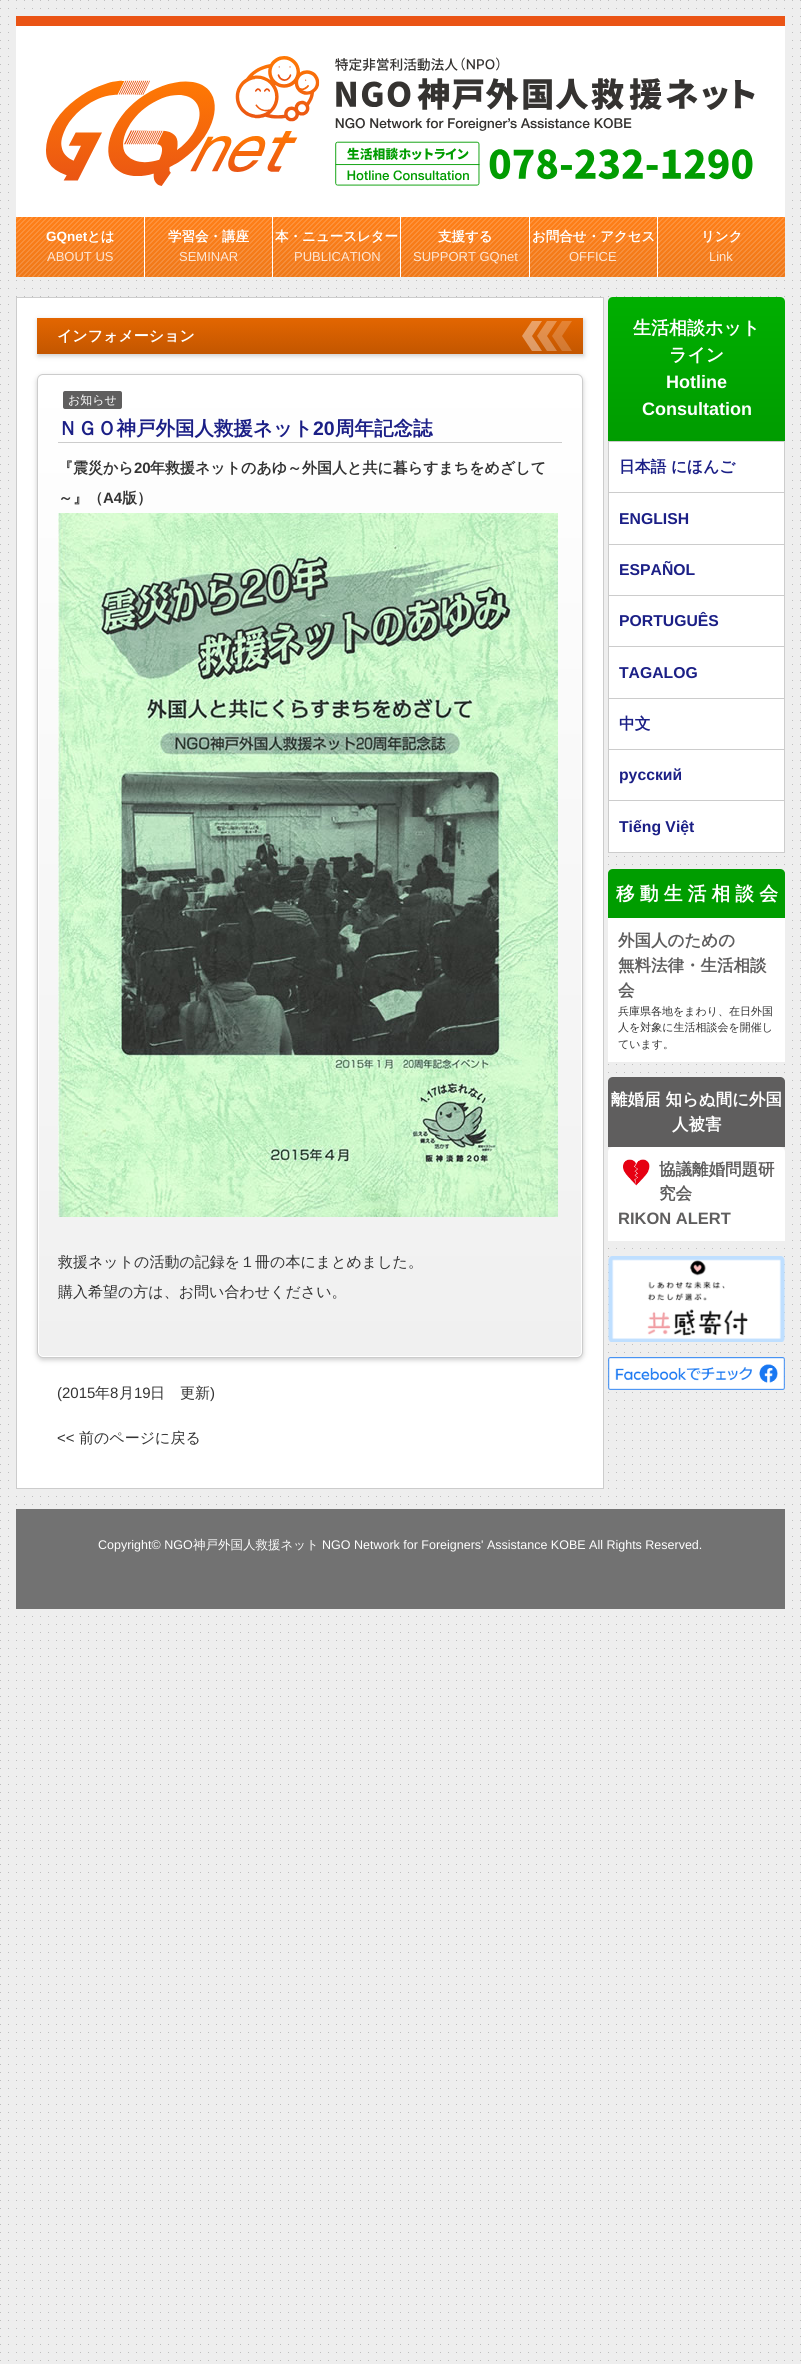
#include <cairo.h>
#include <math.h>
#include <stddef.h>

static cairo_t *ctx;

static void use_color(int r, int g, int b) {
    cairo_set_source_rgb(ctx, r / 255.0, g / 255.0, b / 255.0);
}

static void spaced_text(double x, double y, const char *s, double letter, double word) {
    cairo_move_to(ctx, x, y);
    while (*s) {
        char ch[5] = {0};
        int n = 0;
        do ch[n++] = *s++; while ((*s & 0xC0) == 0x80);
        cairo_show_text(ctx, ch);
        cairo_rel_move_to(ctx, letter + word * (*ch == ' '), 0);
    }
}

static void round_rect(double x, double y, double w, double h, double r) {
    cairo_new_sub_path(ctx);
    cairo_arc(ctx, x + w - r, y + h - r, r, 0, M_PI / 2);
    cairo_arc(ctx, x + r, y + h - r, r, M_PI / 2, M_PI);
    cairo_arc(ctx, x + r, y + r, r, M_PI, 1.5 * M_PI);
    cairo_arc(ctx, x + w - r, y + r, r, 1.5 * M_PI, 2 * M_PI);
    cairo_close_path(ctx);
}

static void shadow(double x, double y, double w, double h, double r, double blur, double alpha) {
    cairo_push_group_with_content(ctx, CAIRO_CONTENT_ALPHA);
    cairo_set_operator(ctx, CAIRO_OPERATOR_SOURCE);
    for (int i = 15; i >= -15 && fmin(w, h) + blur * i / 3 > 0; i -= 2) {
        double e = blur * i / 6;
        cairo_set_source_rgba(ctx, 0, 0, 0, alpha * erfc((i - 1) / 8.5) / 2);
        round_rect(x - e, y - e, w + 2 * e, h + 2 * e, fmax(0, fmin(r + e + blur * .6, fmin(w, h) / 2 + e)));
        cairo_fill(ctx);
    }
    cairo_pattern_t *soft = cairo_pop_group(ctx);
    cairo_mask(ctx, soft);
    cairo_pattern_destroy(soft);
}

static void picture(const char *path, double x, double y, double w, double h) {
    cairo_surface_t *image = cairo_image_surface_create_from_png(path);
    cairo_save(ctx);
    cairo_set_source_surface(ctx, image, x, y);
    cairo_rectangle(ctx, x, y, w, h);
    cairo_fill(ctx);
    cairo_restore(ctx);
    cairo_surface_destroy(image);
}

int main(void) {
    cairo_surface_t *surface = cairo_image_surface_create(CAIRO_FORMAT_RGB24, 801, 2364);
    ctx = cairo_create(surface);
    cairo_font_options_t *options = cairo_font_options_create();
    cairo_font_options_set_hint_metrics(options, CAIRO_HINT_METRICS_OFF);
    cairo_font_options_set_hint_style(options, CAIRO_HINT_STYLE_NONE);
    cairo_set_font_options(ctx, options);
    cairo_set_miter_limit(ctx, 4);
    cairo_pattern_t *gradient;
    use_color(238, 238, 238);
    cairo_paint(ctx);
    picture("img1.png", 0, 0, 801, 2361);
    use_color(255, 255, 255);
    cairo_rectangle(ctx, 16, 26, 769, 191);
    cairo_fill(ctx);
    use_color(234, 84, 21);
    cairo_rectangle(ctx, 16, 16, 769, 10);
    cairo_fill(ctx);
    picture("img2.png", 46, 56, 709, 130);
    picture("img3.png", 16, 217, 128, 60);
    cairo_select_font_face(ctx, "Liberation Sans", CAIRO_FONT_SLANT_NORMAL, CAIRO_FONT_WEIGHT_BOLD);
    cairo_set_font_size(ctx, 13.5);
    use_color(255, 255, 255);
    cairo_move_to(ctx, 46, 241);
    cairo_show_text(ctx, "GQnet");
    cairo_select_font_face(ctx, "WenQuanYi Zen Hei", CAIRO_FONT_SLANT_NORMAL, CAIRO_FONT_WEIGHT_BOLD);
    cairo_move_to(ctx, 87, 241);
    cairo_show_text(ctx, "とは");
    cairo_select_font_face(ctx, "Liberation Sans", CAIRO_FONT_SLANT_NORMAL, CAIRO_FONT_WEIGHT_NORMAL);
    cairo_set_font_size(ctx, 13);
    use_color(253, 230, 212);
    cairo_move_to(ctx, 47, 261);
    cairo_show_text(ctx, "ABOUT US");
    picture("img4.png", 145, 217, 127, 60);
    use_color(255, 255, 255);
    cairo_rectangle(ctx, 144, 217, 1, 60);
    cairo_fill(ctx);
    cairo_select_font_face(ctx, "WenQuanYi Zen Hei", CAIRO_FONT_SLANT_NORMAL, CAIRO_FONT_WEIGHT_BOLD);
    cairo_set_font_size(ctx, 13.5);
    cairo_move_to(ctx, 168, 241);
    cairo_show_text(ctx, "学習会・講座");
    cairo_select_font_face(ctx, "Liberation Sans", CAIRO_FONT_SLANT_NORMAL, CAIRO_FONT_WEIGHT_NORMAL);
    cairo_set_font_size(ctx, 13);
    use_color(253, 230, 212);
    cairo_move_to(ctx, 179, 261);
    cairo_show_text(ctx, "SEMINAR");
    picture("img4.png", 273, 217, 127, 60);
    use_color(255, 255, 255);
    cairo_rectangle(ctx, 272, 217, 1, 60);
    cairo_fill(ctx);
    cairo_select_font_face(ctx, "WenQuanYi Zen Hei", CAIRO_FONT_SLANT_NORMAL, CAIRO_FONT_WEIGHT_BOLD);
    cairo_set_font_size(ctx, 13.5);
    cairo_move_to(ctx, 275, 241);
    cairo_show_text(ctx, "本・ニュースレター");
    cairo_select_font_face(ctx, "Liberation Sans", CAIRO_FONT_SLANT_NORMAL, CAIRO_FONT_WEIGHT_NORMAL);
    cairo_set_font_size(ctx, 13);
    use_color(253, 230, 212);
    cairo_move_to(ctx, 294, 261);
    cairo_show_text(ctx, "PUBLICATION");
    picture("img5.png", 401, 217, 128, 60);
    use_color(255, 255, 255);
    cairo_rectangle(ctx, 400, 217, 1, 60);
    cairo_fill(ctx);
    cairo_select_font_face(ctx, "WenQuanYi Zen Hei", CAIRO_FONT_SLANT_NORMAL, CAIRO_FONT_WEIGHT_BOLD);
    cairo_set_font_size(ctx, 13.5);
    cairo_move_to(ctx, 438, 241);
    cairo_show_text(ctx, "支援する");
    cairo_select_font_face(ctx, "Liberation Sans", CAIRO_FONT_SLANT_NORMAL, CAIRO_FONT_WEIGHT_NORMAL);
    cairo_set_font_size(ctx, 13);
    use_color(253, 230, 212);
    cairo_move_to(ctx, 413, 261);
    cairo_show_text(ctx, "SUPPORT GQnet");
    picture("img4.png", 530, 217, 127, 60);
    use_color(255, 255, 255);
    cairo_rectangle(ctx, 529, 217, 1, 60);
    cairo_fill(ctx);
    cairo_select_font_face(ctx, "WenQuanYi Zen Hei", CAIRO_FONT_SLANT_NORMAL, CAIRO_FONT_WEIGHT_BOLD);
    cairo_set_font_size(ctx, 13.5);
    cairo_move_to(ctx, 532, 241);
    cairo_show_text(ctx, "お問合せ・アクセス");
    cairo_select_font_face(ctx, "Liberation Sans", CAIRO_FONT_SLANT_NORMAL, CAIRO_FONT_WEIGHT_NORMAL);
    cairo_set_font_size(ctx, 13);
    use_color(253, 230, 212);
    cairo_move_to(ctx, 569, 261);
    cairo_show_text(ctx, "OFFICE");
    picture("img4.png", 658, 217, 127, 60);
    use_color(255, 255, 255);
    cairo_rectangle(ctx, 657, 217, 1, 60);
    cairo_fill(ctx);
    cairo_select_font_face(ctx, "WenQuanYi Zen Hei", CAIRO_FONT_SLANT_NORMAL, CAIRO_FONT_WEIGHT_BOLD);
    cairo_set_font_size(ctx, 13.5);
    cairo_move_to(ctx, 701, 241);
    cairo_show_text(ctx, "リンク");
    cairo_select_font_face(ctx, "Liberation Sans", CAIRO_FONT_SLANT_NORMAL, CAIRO_FONT_WEIGHT_NORMAL);
    cairo_set_font_size(ctx, 13);
    use_color(253, 230, 212);
    cairo_move_to(ctx, 709, 261);
    cairo_show_text(ctx, "Link");
    use_color(255, 255, 255);
    cairo_rectangle(ctx, 16.5, 297.5, 587, 1191);
    cairo_fill_preserve(ctx);
    use_color(204, 204, 204);
    cairo_set_line_width(ctx, 1);
    cairo_stroke(ctx);
    use_color(204, 204, 204);
    shadow(38, 320, 546, 36, 0, 2.5, 1);
    picture("img6.png", 37, 318, 546, 36);
    cairo_select_font_face(ctx, "WenQuanYi Zen Hei", CAIRO_FONT_SLANT_NORMAL, CAIRO_FONT_WEIGHT_BOLD);
    cairo_set_font_size(ctx, 15);
    use_color(255, 255, 255);
    cairo_move_to(ctx, 57, 341);
    cairo_show_text(ctx, "インフォメーション");
    use_color(204, 204, 204);
    shadow(37, 376, 546, 984, 6, 2.5, 1);
    cairo_save(ctx);
    round_rect(37, 374, 546, 984, 6);
    cairo_clip(ctx);
    gradient = cairo_pattern_create_linear(310, 375, 310, 1357);
    cairo_pattern_add_color_stop_rgba(gradient, 0, 1, 1, 1, 1);
    cairo_pattern_add_color_stop_rgba(gradient, 1, 0.941, 0.941, 0.941, 1);
    cairo_set_source(ctx, gradient);
    cairo_pattern_destroy(gradient);
    cairo_rectangle(ctx, 37, 375, 546, 982);
    cairo_fill(ctx);
    cairo_restore(ctx);
    round_rect(38.5, 375.5, 543, 981, 4.5);
    use_color(255, 255, 255);
    cairo_stroke(ctx);
    round_rect(37.5, 374.5, 545, 983, 5.5);
    use_color(204, 204, 204);
    cairo_stroke(ctx);
    use_color(95, 94, 94);
    round_rect(63, 391, 59, 18, 2);
    cairo_fill(ctx);
    cairo_select_font_face(ctx, "WenQuanYi Zen Hei Medium", CAIRO_FONT_SLANT_NORMAL, CAIRO_FONT_WEIGHT_NORMAL);
    cairo_set_font_size(ctx, 12);
    use_color(255, 255, 255);
    cairo_move_to(ctx, 68, 404);
    cairo_show_text(ctx, "お知らせ");
    use_color(204, 204, 204);
    cairo_rectangle(ctx, 58, 442, 504, 1);
    cairo_fill(ctx);
    cairo_select_font_face(ctx, "WenQuanYi Zen Hei", CAIRO_FONT_SLANT_NORMAL, CAIRO_FONT_WEIGHT_BOLD);
    cairo_set_font_size(ctx, 19.5);
    use_color(27, 31, 134);
    cairo_move_to(ctx, 58, 435);
    cairo_show_text(ctx, "ＮＧＯ神戸外国人救援ネット");
    cairo_select_font_face(ctx, "Liberation Sans", CAIRO_FONT_SLANT_NORMAL, CAIRO_FONT_WEIGHT_BOLD);
    cairo_move_to(ctx, 313, 435);
    cairo_show_text(ctx, "20");
    cairo_select_font_face(ctx, "WenQuanYi Zen Hei", CAIRO_FONT_SLANT_NORMAL, CAIRO_FONT_WEIGHT_BOLD);
    cairo_move_to(ctx, 335, 435);
    cairo_show_text(ctx, "周年記念誌");
    cairo_set_font_size(ctx, 15);
    use_color(51, 51, 51);
    cairo_move_to(ctx, 58, 473);
    cairo_show_text(ctx, "『震災から");
    cairo_select_font_face(ctx, "Liberation Sans", CAIRO_FONT_SLANT_NORMAL, CAIRO_FONT_WEIGHT_BOLD);
    cairo_move_to(ctx, 134, 473);
    cairo_show_text(ctx, "20");
    cairo_select_font_face(ctx, "WenQuanYi Zen Hei", CAIRO_FONT_SLANT_NORMAL, CAIRO_FONT_WEIGHT_BOLD);
    cairo_move_to(ctx, 150, 473);
    cairo_show_text(ctx, "年救援ネットのあゆ～外国人と共に暮らすまちをめざして");
    cairo_move_to(ctx, 58, 503);
    cairo_show_text(ctx, "～』（");
    cairo_select_font_face(ctx, "Liberation Sans", CAIRO_FONT_SLANT_NORMAL, CAIRO_FONT_WEIGHT_BOLD);
    cairo_move_to(ctx, 103, 503);
    cairo_show_text(ctx, "A4");
    cairo_select_font_face(ctx, "WenQuanYi Zen Hei", CAIRO_FONT_SLANT_NORMAL, CAIRO_FONT_WEIGHT_BOLD);
    cairo_move_to(ctx, 122, 503);
    cairo_show_text(ctx, "版）");
    picture("img7.png", 58, 513, 500, 704);
    cairo_select_font_face(ctx, "WenQuanYi Zen Hei Medium", CAIRO_FONT_SLANT_NORMAL, CAIRO_FONT_WEIGHT_NORMAL);
    cairo_move_to(ctx, 58, 1267);
    cairo_show_text(ctx, "救援ネットの活動の記録を１冊の本にまとめました。");
    cairo_move_to(ctx, 58, 1297);
    cairo_show_text(ctx, "購入希望の方は、お問い合わせください。");
    cairo_select_font_face(ctx, "Liberation Sans", CAIRO_FONT_SLANT_NORMAL, CAIRO_FONT_WEIGHT_NORMAL);
    cairo_move_to(ctx, 57, 1398);
    cairo_show_text(ctx, "(2015");
    cairo_select_font_face(ctx, "WenQuanYi Zen Hei Medium", CAIRO_FONT_SLANT_NORMAL, CAIRO_FONT_WEIGHT_NORMAL);
    cairo_move_to(ctx, 95, 1398);
    cairo_show_text(ctx, "年");
    cairo_select_font_face(ctx, "Liberation Sans", CAIRO_FONT_SLANT_NORMAL, CAIRO_FONT_WEIGHT_NORMAL);
    cairo_move_to(ctx, 110, 1398);
    cairo_show_text(ctx, "8");
    cairo_select_font_face(ctx, "WenQuanYi Zen Hei Medium", CAIRO_FONT_SLANT_NORMAL, CAIRO_FONT_WEIGHT_NORMAL);
    cairo_move_to(ctx, 119, 1398);
    cairo_show_text(ctx, "月");
    cairo_select_font_face(ctx, "Liberation Sans", CAIRO_FONT_SLANT_NORMAL, CAIRO_FONT_WEIGHT_NORMAL);
    cairo_move_to(ctx, 134, 1398);
    cairo_show_text(ctx, "19");
    cairo_select_font_face(ctx, "WenQuanYi Zen Hei Medium", CAIRO_FONT_SLANT_NORMAL, CAIRO_FONT_WEIGHT_NORMAL);
    cairo_move_to(ctx, 150, 1398);
    cairo_show_text(ctx, "日　更新");
    cairo_select_font_face(ctx, "Liberation Sans", CAIRO_FONT_SLANT_NORMAL, CAIRO_FONT_WEIGHT_NORMAL);
    cairo_move_to(ctx, 210, 1398);
    cairo_show_text(ctx, ")");
    cairo_move_to(ctx, 57, 1443);
    cairo_show_text(ctx, "<<");
    cairo_select_font_face(ctx, "WenQuanYi Zen Hei Medium", CAIRO_FONT_SLANT_NORMAL, CAIRO_FONT_WEIGHT_NORMAL);
    cairo_move_to(ctx, 79, 1443);
    cairo_show_text(ctx, "前のページに戻る");
    gradient = cairo_pattern_create_linear(697, 297, 697, 441);
    cairo_pattern_add_color_stop_rgba(gradient, 0, 0, 0.686, 0, 1);
    cairo_pattern_add_color_stop_rgba(gradient, 1, 0, 0.612, 0, 1);
    cairo_set_source(ctx, gradient);
    cairo_pattern_destroy(gradient);
    cairo_new_path(ctx);
    cairo_move_to(ctx, 613, 297);
    cairo_line_to(ctx, 780, 297);
    cairo_curve_to(ctx, 783, 297, 785, 299, 785, 302);
    cairo_line_to(ctx, 785, 441);
    cairo_line_to(ctx, 608, 441);
    cairo_line_to(ctx, 608, 302);
    cairo_curve_to(ctx, 608, 299, 610, 297, 613, 297);
    cairo_close_path(ctx);
    cairo_fill(ctx);
    cairo_select_font_face(ctx, "WenQuanYi Zen Hei", CAIRO_FONT_SLANT_NORMAL, CAIRO_FONT_WEIGHT_BOLD);
    cairo_set_font_size(ctx, 18);
    use_color(255, 255, 255);
    cairo_move_to(ctx, 633, 334);
    cairo_show_text(ctx, "生活相談ホット");
    cairo_move_to(ctx, 669, 361);
    cairo_show_text(ctx, "ライン");
    cairo_select_font_face(ctx, "Liberation Sans", CAIRO_FONT_SLANT_NORMAL, CAIRO_FONT_WEIGHT_BOLD);
    cairo_move_to(ctx, 666, 388);
    cairo_show_text(ctx, "Hotline");
    cairo_move_to(ctx, 642, 415);
    cairo_show_text(ctx, "Consultation");
    use_color(204, 204, 204);
    cairo_rectangle(ctx, 608, 441, 177, 1);
    cairo_fill(ctx);
    cairo_rectangle(ctx, 784, 441, 1, 412);
    cairo_fill(ctx);
    cairo_rectangle(ctx, 608, 441, 1, 412);
    cairo_fill(ctx);
    use_color(255, 255, 255);
    cairo_rectangle(ctx, 609, 442, 175, 50);
    cairo_fill(ctx);
    use_color(204, 204, 204);
    cairo_rectangle(ctx, 609, 492, 175, 1);
    cairo_fill(ctx);
    cairo_select_font_face(ctx, "WenQuanYi Zen Hei", CAIRO_FONT_SLANT_NORMAL, CAIRO_FONT_WEIGHT_BOLD);
    cairo_set_font_size(ctx, 15.75);
    use_color(27, 31, 134);
    cairo_move_to(ctx, 619, 472);
    cairo_show_text(ctx, "日本語 にほんご");
    use_color(255, 255, 255);
    cairo_rectangle(ctx, 609, 493, 175, 51);
    cairo_fill(ctx);
    use_color(204, 204, 204);
    cairo_rectangle(ctx, 609, 544, 175, 1);
    cairo_fill(ctx);
    cairo_select_font_face(ctx, "Liberation Sans", CAIRO_FONT_SLANT_NORMAL, CAIRO_FONT_WEIGHT_BOLD);
    use_color(27, 31, 134);
    cairo_move_to(ctx, 619, 524);
    cairo_show_text(ctx, "ENGLISH");
    use_color(255, 255, 255);
    cairo_rectangle(ctx, 609, 545, 175, 50);
    cairo_fill(ctx);
    use_color(204, 204, 204);
    cairo_rectangle(ctx, 609, 595, 175, 1);
    cairo_fill(ctx);
    use_color(27, 31, 134);
    cairo_move_to(ctx, 619, 575);
    cairo_show_text(ctx, "ESPAÑOL");
    use_color(255, 255, 255);
    cairo_rectangle(ctx, 609, 596, 175, 50);
    cairo_fill(ctx);
    use_color(204, 204, 204);
    cairo_rectangle(ctx, 609, 646, 175, 1);
    cairo_fill(ctx);
    use_color(27, 31, 134);
    cairo_move_to(ctx, 619, 626);
    cairo_show_text(ctx, "PORTUGUÊS");
    use_color(255, 255, 255);
    cairo_rectangle(ctx, 609, 647, 175, 51);
    cairo_fill(ctx);
    use_color(204, 204, 204);
    cairo_rectangle(ctx, 609, 698, 175, 1);
    cairo_fill(ctx);
    use_color(27, 31, 134);
    cairo_move_to(ctx, 619, 678);
    cairo_show_text(ctx, "TAGALOG");
    use_color(255, 255, 255);
    cairo_rectangle(ctx, 609, 699, 175, 50);
    cairo_fill(ctx);
    use_color(204, 204, 204);
    cairo_rectangle(ctx, 609, 749, 175, 1);
    cairo_fill(ctx);
    cairo_select_font_face(ctx, "WenQuanYi Zen Hei", CAIRO_FONT_SLANT_NORMAL, CAIRO_FONT_WEIGHT_BOLD);
    use_color(27, 31, 134);
    cairo_move_to(ctx, 619, 729);
    cairo_show_text(ctx, "中文");
    use_color(255, 255, 255);
    cairo_rectangle(ctx, 609, 750, 175, 50);
    cairo_fill(ctx);
    use_color(204, 204, 204);
    cairo_rectangle(ctx, 609, 800, 175, 1);
    cairo_fill(ctx);
    cairo_select_font_face(ctx, "Liberation Sans", CAIRO_FONT_SLANT_NORMAL, CAIRO_FONT_WEIGHT_BOLD);
    use_color(27, 31, 134);
    cairo_move_to(ctx, 619, 780);
    cairo_show_text(ctx, "русский");
    use_color(255, 255, 255);
    cairo_rectangle(ctx, 609, 801, 175, 51);
    cairo_fill(ctx);
    use_color(204, 204, 204);
    cairo_rectangle(ctx, 609, 852, 175, 1);
    cairo_fill(ctx);
    use_color(27, 31, 134);
    cairo_move_to(ctx, 619, 832);
    cairo_show_text(ctx, "Tiếng Việt");
    use_color(0, 157, 0);
    cairo_new_path(ctx);
    cairo_move_to(ctx, 613, 869);
    cairo_line_to(ctx, 780, 869);
    cairo_curve_to(ctx, 783, 869, 785, 871, 785, 874);
    cairo_line_to(ctx, 785, 918);
    cairo_line_to(ctx, 608, 918);
    cairo_line_to(ctx, 608, 874);
    cairo_curve_to(ctx, 608, 871, 610, 869, 613, 869);
    cairo_close_path(ctx);
    cairo_fill(ctx);
    cairo_select_font_face(ctx, "WenQuanYi Zen Hei", CAIRO_FONT_SLANT_NORMAL, CAIRO_FONT_WEIGHT_BOLD);
    cairo_set_font_size(ctx, 18.75);
    use_color(255, 255, 255);
    spaced_text(616, 900, "移 動 生 活 相 談 会", 0, -0.5);
    cairo_rectangle(ctx, 608, 918, 177, 144);
    cairo_fill(ctx);
    cairo_set_font_size(ctx, 16.5);
    use_color(95, 94, 94);
    cairo_move_to(ctx, 618, 946);
    cairo_show_text(ctx, "外国人のための");
    cairo_move_to(ctx, 618, 971);
    cairo_show_text(ctx, "無料法律・生活相談");
    cairo_move_to(ctx, 618, 996);
    cairo_show_text(ctx, "会");
    cairo_select_font_face(ctx, "WenQuanYi Zen Hei Medium", CAIRO_FONT_SLANT_NORMAL, CAIRO_FONT_WEIGHT_NORMAL);
    cairo_set_font_size(ctx, 11);
    use_color(51, 51, 51);
    cairo_move_to(ctx, 618, 1015);
    cairo_show_text(ctx, "兵庫県各地をまわり、在日外国");
    cairo_move_to(ctx, 618, 1031);
    cairo_show_text(ctx, "人を対象に生活相談会を開催し");
    cairo_move_to(ctx, 618, 1048);
    cairo_show_text(ctx, "ています。");
    use_color(95, 94, 94);
    cairo_new_path(ctx);
    cairo_move_to(ctx, 613, 1077);
    cairo_line_to(ctx, 780, 1077);
    cairo_curve_to(ctx, 783, 1077, 785, 1079, 785, 1082);
    cairo_line_to(ctx, 785, 1147);
    cairo_line_to(ctx, 608, 1147);
    cairo_line_to(ctx, 608, 1082);
    cairo_curve_to(ctx, 608, 1079, 610, 1077, 613, 1077);
    cairo_close_path(ctx);
    cairo_fill(ctx);
    cairo_select_font_face(ctx, "WenQuanYi Zen Hei", CAIRO_FONT_SLANT_NORMAL, CAIRO_FONT_WEIGHT_BOLD);
    cairo_set_font_size(ctx, 16.5);
    use_color(255, 255, 255);
    cairo_move_to(ctx, 611, 1105);
    cairo_show_text(ctx, "離婚届 知らぬ間に外国");
    cairo_move_to(ctx, 672, 1130);
    cairo_show_text(ctx, "人被害");
    cairo_new_path(ctx);
    cairo_move_to(ctx, 613, 1147);
    cairo_line_to(ctx, 780, 1147);
    cairo_curve_to(ctx, 783, 1147, 785, 1149, 785, 1152);
    cairo_line_to(ctx, 785, 1241);
    cairo_line_to(ctx, 608, 1241);
    cairo_line_to(ctx, 608, 1152);
    cairo_curve_to(ctx, 608, 1149, 610, 1147, 613, 1147);
    cairo_close_path(ctx);
    cairo_fill(ctx);
    picture("img8.png", 623, 1159, 27, 27);
    use_color(95, 94, 94);
    cairo_move_to(ctx, 659, 1175);
    cairo_show_text(ctx, "協議離婚問題研");
    cairo_move_to(ctx, 659, 1199);
    cairo_show_text(ctx, "究会");
    cairo_select_font_face(ctx, "Liberation Sans", CAIRO_FONT_SLANT_NORMAL, CAIRO_FONT_WEIGHT_BOLD);
    cairo_move_to(ctx, 618, 1224);
    cairo_show_text(ctx, "RIKON ALERT");
    picture("img9.png", 608, 1256, 177, 86);
    picture("img10.png", 608, 1357, 177, 33);
    use_color(114, 114, 114);
    cairo_rectangle(ctx, 16, 1509, 769, 100);
    cairo_fill(ctx);
    cairo_select_font_face(ctx, "Liberation Sans", CAIRO_FONT_SLANT_NORMAL, CAIRO_FONT_WEIGHT_NORMAL);
    cairo_set_font_size(ctx, 12.5);
    use_color(255, 255, 255);
    cairo_move_to(ctx, 98, 1549);
    cairo_show_text(ctx, "Copyright© NGO");
    cairo_select_font_face(ctx, "WenQuanYi Zen Hei Medium", CAIRO_FONT_SLANT_NORMAL, CAIRO_FONT_WEIGHT_NORMAL);
    cairo_move_to(ctx, 193, 1549);
    cairo_show_text(ctx, "神戸外国人救援ネット");
    cairo_select_font_face(ctx, "Liberation Sans", CAIRO_FONT_SLANT_NORMAL, CAIRO_FONT_WEIGHT_NORMAL);
    cairo_move_to(ctx, 322, 1549);
    cairo_show_text(ctx, "NGO Network for Foreigners' Assistance KOBE All Rights Reserved.");
    cairo_surface_write_to_png(surface, "result.png");
    cairo_font_options_destroy(options);
    cairo_destroy(ctx);
    cairo_surface_destroy(surface);
    return 0;
}
